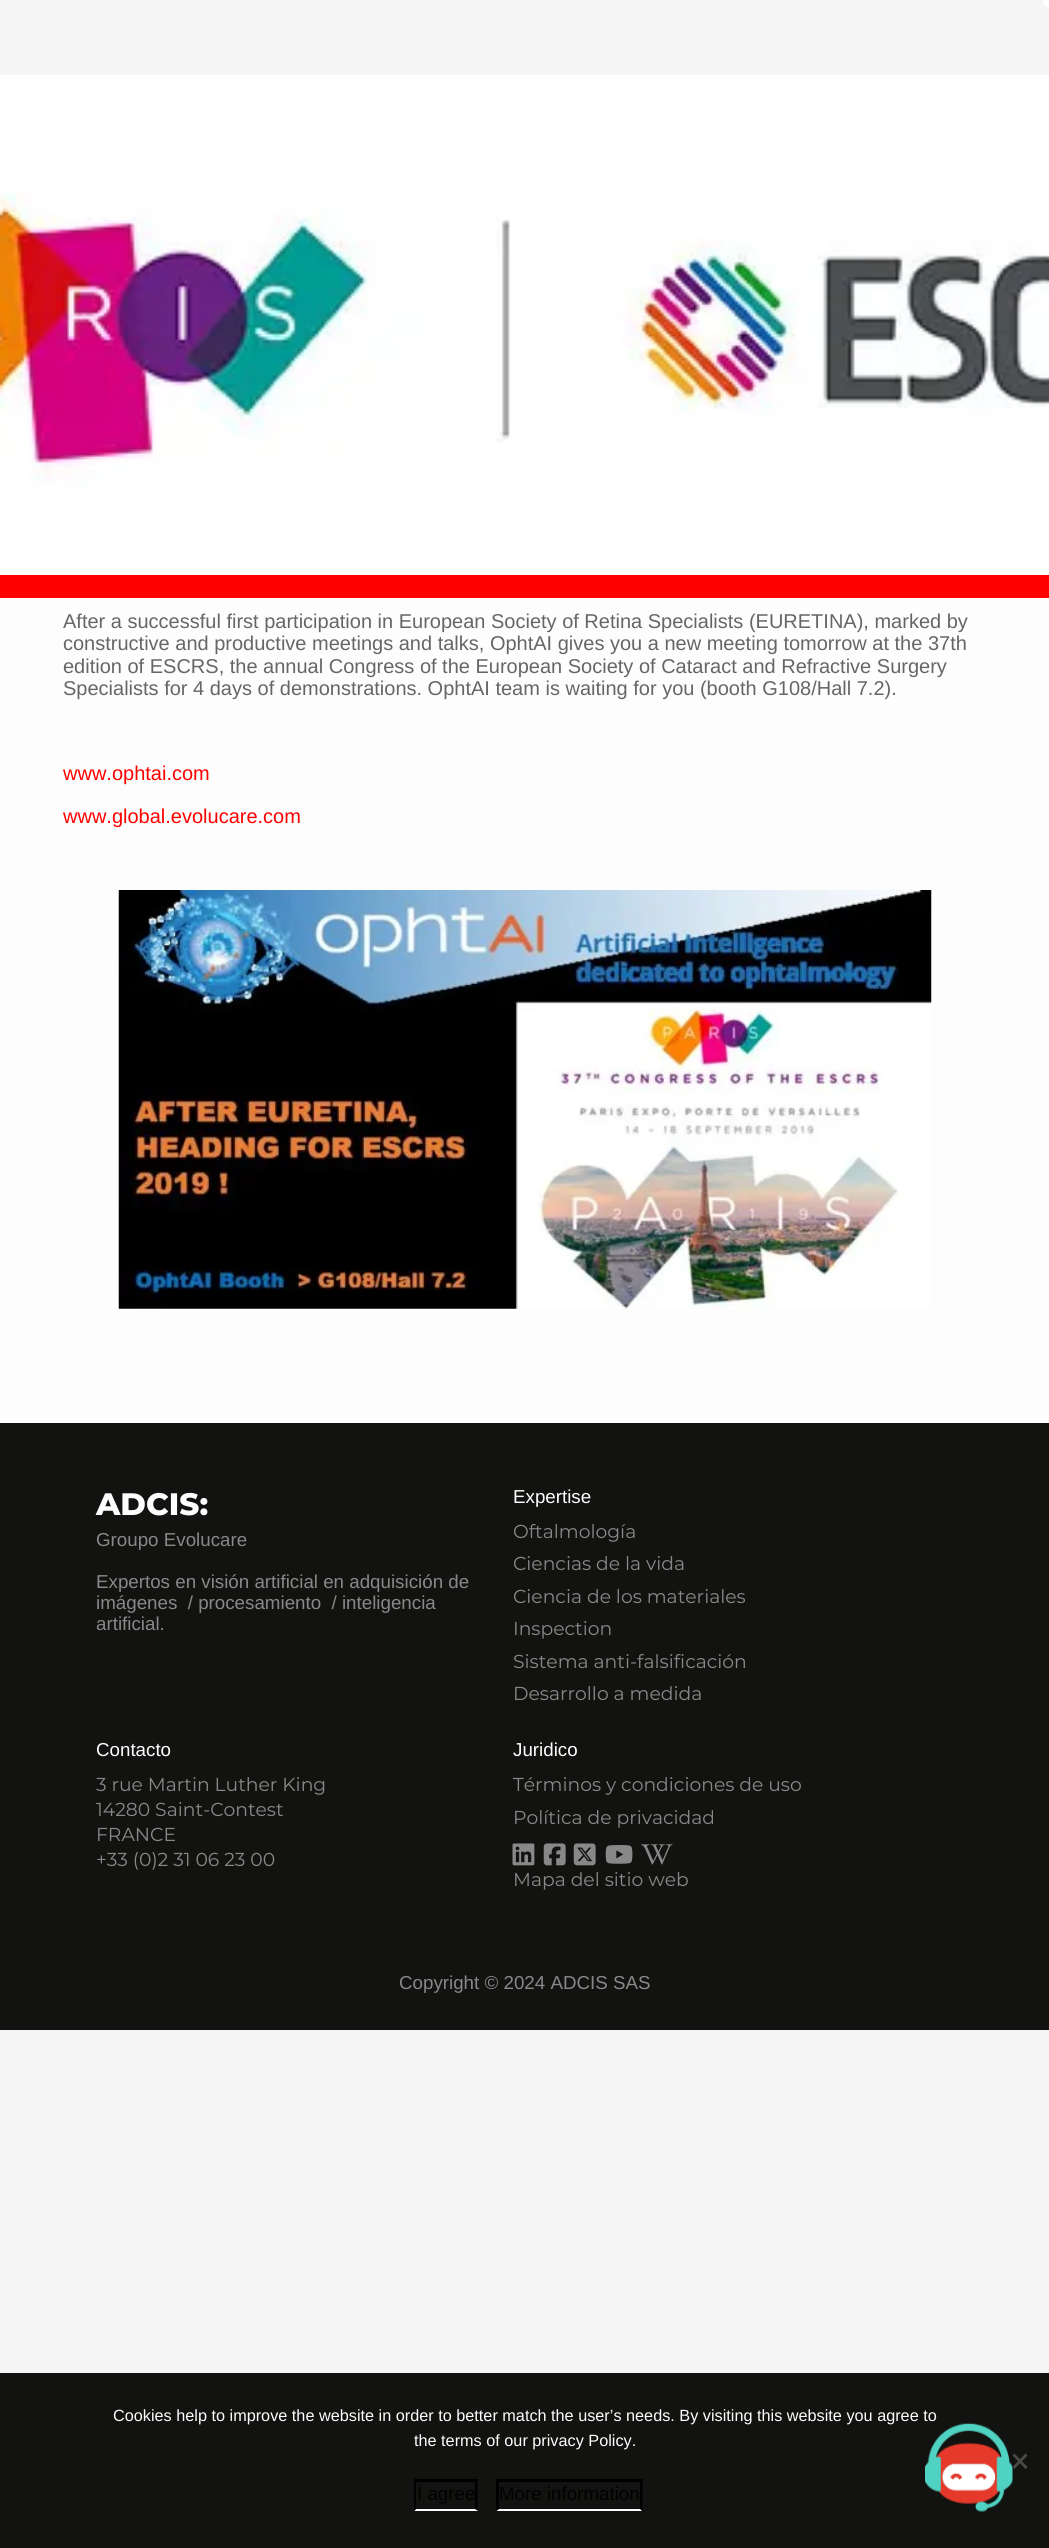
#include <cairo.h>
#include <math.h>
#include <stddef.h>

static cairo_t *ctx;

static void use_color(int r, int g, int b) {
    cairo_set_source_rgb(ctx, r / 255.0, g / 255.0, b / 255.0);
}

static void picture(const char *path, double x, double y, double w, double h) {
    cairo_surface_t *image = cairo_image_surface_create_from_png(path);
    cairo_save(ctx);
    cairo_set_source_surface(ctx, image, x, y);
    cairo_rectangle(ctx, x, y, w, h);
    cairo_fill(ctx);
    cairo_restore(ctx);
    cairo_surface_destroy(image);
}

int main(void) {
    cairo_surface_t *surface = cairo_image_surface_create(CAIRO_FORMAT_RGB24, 1049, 2548);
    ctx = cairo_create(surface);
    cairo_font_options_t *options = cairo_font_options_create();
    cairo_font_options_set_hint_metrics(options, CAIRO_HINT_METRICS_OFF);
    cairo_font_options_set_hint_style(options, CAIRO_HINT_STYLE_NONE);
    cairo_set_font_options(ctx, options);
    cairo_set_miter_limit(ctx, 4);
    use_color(245, 245, 245);
    cairo_paint(ctx);
    use_color(255, 255, 255);
    cairo_new_path(ctx);
    cairo_move_to(ctx, 1043, 0);
    cairo_line_to(ctx, 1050, 0);
    cairo_line_to(ctx, 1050, 8);
    cairo_curve_to(ctx, 1046, 8, 1043, 5, 1043, 1);
    cairo_close_path(ctx);
    cairo_fill(ctx);
    picture("img1.png", 0, 75, 1049, 500);
    use_color(255, 0, 0);
    cairo_rectangle(ctx, 0, 575, 1049, 23);
    cairo_fill(ctx);
    use_color(253, 253, 253);
    cairo_rectangle(ctx, 0, 598, 1049, 825);
    cairo_fill(ctx);
    cairo_select_font_face(ctx, "Liberation Sans", CAIRO_FONT_SLANT_NORMAL, CAIRO_FONT_WEIGHT_NORMAL);
    cairo_set_font_size(ctx, 20);
    use_color(102, 102, 102);
    cairo_move_to(ctx, 63, 628);
    cairo_show_text(ctx, "After a successful first participation in European Society of Retina Specialists (EURETINA), marked by");
    cairo_move_to(ctx, 63, 650);
    cairo_show_text(ctx, "constructive and productive meetings and talks, OphtAI gives you a new meeting tomorrow at the 37th");
    cairo_move_to(ctx, 63, 673);
    cairo_show_text(ctx, "edition of ESCRS, the annual Congress of the European Society of Cataract and Refractive Surgery");
    cairo_move_to(ctx, 63, 695);
    cairo_show_text(ctx, "Specialists for 4 days of demonstrations. OphtAI team is waiting for you (booth G108/Hall 7.2).");
    use_color(255, 0, 0);
    cairo_move_to(ctx, 63, 780);
    cairo_show_text(ctx, "www.ophtai.com");
    cairo_move_to(ctx, 63, 823);
    cairo_show_text(ctx, "www.global.evolucare.com");
    picture("img2.png", 118, 890, 814, 419);
    use_color(18, 18, 16);
    cairo_rectangle(ctx, 0, 1423, 1049, 607);
    cairo_fill(ctx);
    cairo_select_font_face(ctx, "Montserrat ExtraBold", CAIRO_FONT_SLANT_NORMAL, CAIRO_FONT_WEIGHT_NORMAL);
    cairo_set_font_size(ctx, 31);
    use_color(253, 253, 253);
    cairo_move_to(ctx, 96, 1515);
    cairo_show_text(ctx, "ADCIS:");
    cairo_select_font_face(ctx, "Liberation Sans", CAIRO_FONT_SLANT_NORMAL, CAIRO_FONT_WEIGHT_NORMAL);
    cairo_set_font_size(ctx, 18.75);
    use_color(136, 136, 136);
    cairo_move_to(ctx, 96, 1546);
    cairo_show_text(ctx, "Groupo Evolucare");
    cairo_move_to(ctx, 96, 1588);
    cairo_show_text(ctx, "Expertos en visión artificial en adquisición de");
    cairo_move_to(ctx, 96, 1609);
    cairo_show_text(ctx, "imágenes  / procesamiento  / inteligencia");
    cairo_move_to(ctx, 96, 1630);
    cairo_show_text(ctx, "artificial.");
    use_color(253, 253, 253);
    cairo_move_to(ctx, 513, 1503);
    cairo_show_text(ctx, "Expertise");
    cairo_select_font_face(ctx, "Montserrat Thin", CAIRO_FONT_SLANT_NORMAL, CAIRO_FONT_WEIGHT_NORMAL);
    use_color(136, 136, 136);
    cairo_move_to(ctx, 513, 1538);
    cairo_show_text(ctx, "Oftalmología");
    cairo_move_to(ctx, 513, 1570);
    cairo_show_text(ctx, "Ciencias de la vida");
    cairo_move_to(ctx, 513, 1603);
    cairo_show_text(ctx, "Ciencia de los materiales");
    cairo_move_to(ctx, 513, 1635);
    cairo_show_text(ctx, "Inspection");
    cairo_move_to(ctx, 513, 1668);
    cairo_show_text(ctx, "Sistema anti-falsificación");
    cairo_move_to(ctx, 513, 1700);
    cairo_show_text(ctx, "Desarrollo a medida");
    cairo_select_font_face(ctx, "Liberation Sans", CAIRO_FONT_SLANT_NORMAL, CAIRO_FONT_WEIGHT_NORMAL);
    use_color(253, 253, 253);
    cairo_move_to(ctx, 96, 1756);
    cairo_show_text(ctx, "Contacto");
    cairo_select_font_face(ctx, "Montserrat Thin", CAIRO_FONT_SLANT_NORMAL, CAIRO_FONT_WEIGHT_NORMAL);
    use_color(136, 136, 136);
    cairo_move_to(ctx, 96, 1791);
    cairo_show_text(ctx, "3 rue Martin Luther King");
    cairo_move_to(ctx, 96, 1816);
    cairo_show_text(ctx, "14280 Saint-Contest");
    cairo_move_to(ctx, 96, 1841);
    cairo_show_text(ctx, "FRANCE");
    cairo_move_to(ctx, 96, 1866);
    cairo_show_text(ctx, "+33 (0)2 31 06 23 00");
    cairo_select_font_face(ctx, "Liberation Sans", CAIRO_FONT_SLANT_NORMAL, CAIRO_FONT_WEIGHT_NORMAL);
    use_color(253, 253, 253);
    cairo_move_to(ctx, 513, 1756);
    cairo_show_text(ctx, "Juridico");
    cairo_select_font_face(ctx, "Montserrat Thin", CAIRO_FONT_SLANT_NORMAL, CAIRO_FONT_WEIGHT_NORMAL);
    use_color(136, 136, 136);
    cairo_move_to(ctx, 513, 1791);
    cairo_show_text(ctx, "Términos y condiciones de uso");
    cairo_move_to(ctx, 513, 1824);
    cairo_show_text(ctx, "Política de privacidad");
    picture("img3.png", 512, 1843, 23, 23);
    picture("img4.png", 543, 1843, 23, 23);
    picture("img5.png", 573, 1843, 23, 23);
    picture("img6.png", 605, 1845, 28, 19);
    picture("img7.png", 641, 1844, 32, 21);
    cairo_move_to(ctx, 513, 1886);
    cairo_show_text(ctx, "Mapa del sitio web");
    cairo_select_font_face(ctx, "Liberation Sans", CAIRO_FONT_SLANT_NORMAL, CAIRO_FONT_WEIGHT_NORMAL);
    cairo_move_to(ctx, 399, 1989);
    cairo_show_text(ctx, "Copyright © 2024 ADCIS SAS");
    use_color(18, 18, 16);
    cairo_rectangle(ctx, 0, 2373, 1049, 175);
    cairo_fill(ctx);
    cairo_set_font_size(ctx, 16.25);
    use_color(253, 253, 253);
    cairo_move_to(ctx, 113, 2421);
    cairo_show_text(ctx, "Cookies help to improve the website in order to better match the user’s needs. By visiting this website you agree to");
    cairo_move_to(ctx, 414, 2446);
    cairo_show_text(ctx, "the terms of our privacy Policy.");
    use_color(73, 73, 72);
    cairo_new_path(ctx);
    cairo_move_to(ctx, 1025.5, 2453.5);
    cairo_line_to(ctx, 1027.5, 2455.5);
    cairo_line_to(ctx, 1014.5, 2469);
    cairo_line_to(ctx, 1012.5, 2467);
    cairo_close_path(ctx);
    cairo_fill(ctx);
    cairo_new_path(ctx);
    cairo_move_to(ctx, 1012.5, 2455.5);
    cairo_line_to(ctx, 1014.5, 2453.5);
    cairo_line_to(ctx, 1027.5, 2467);
    cairo_line_to(ctx, 1025.5, 2469);
    cairo_close_path(ctx);
    cairo_fill(ctx);
    use_color(0, 0, 0);
    cairo_rectangle(ctx, 414, 2479, 64, 3);
    cairo_fill(ctx);
    cairo_new_path(ctx);
    cairo_move_to(ctx, 477.5, 2479);
    cairo_line_to(ctx, 477.5, 2511);
    cairo_line_to(ctx, 475, 2509);
    cairo_line_to(ctx, 475, 2481);
    cairo_close_path(ctx);
    cairo_fill(ctx);
    use_color(253, 253, 253);
    cairo_new_path(ctx);
    cairo_move_to(ctx, 478, 2511);
    cairo_line_to(ctx, 414, 2511);
    cairo_line_to(ctx, 416, 2509);
    cairo_line_to(ctx, 475, 2509);
    cairo_close_path(ctx);
    cairo_fill(ctx);
    use_color(0, 0, 0);
    cairo_new_path(ctx);
    cairo_move_to(ctx, 414, 2511);
    cairo_line_to(ctx, 414, 2479);
    cairo_line_to(ctx, 416, 2481);
    cairo_line_to(ctx, 416, 2509);
    cairo_close_path(ctx);
    cairo_fill(ctx);
    cairo_set_font_size(ctx, 18.75);
    cairo_move_to(ctx, 417, 2500);
    cairo_show_text(ctx, "I agree");
    cairo_rectangle(ctx, 496, 2479, 147, 3);
    cairo_fill(ctx);
    cairo_new_path(ctx);
    cairo_move_to(ctx, 642.5, 2479);
    cairo_line_to(ctx, 642.5, 2511);
    cairo_line_to(ctx, 640, 2509);
    cairo_line_to(ctx, 640, 2481);
    cairo_close_path(ctx);
    cairo_fill(ctx);
    use_color(253, 253, 253);
    cairo_new_path(ctx);
    cairo_move_to(ctx, 642, 2511);
    cairo_line_to(ctx, 496, 2511);
    cairo_line_to(ctx, 499, 2509);
    cairo_line_to(ctx, 640, 2509);
    cairo_close_path(ctx);
    cairo_fill(ctx);
    use_color(0, 0, 0);
    cairo_new_path(ctx);
    cairo_move_to(ctx, 496, 2511);
    cairo_line_to(ctx, 496, 2479);
    cairo_line_to(ctx, 499, 2481);
    cairo_line_to(ctx, 499, 2509);
    cairo_close_path(ctx);
    cairo_fill(ctx);
    cairo_move_to(ctx, 499, 2500);
    cairo_show_text(ctx, "More information");
    picture("img8.png", 925, 2423, 88, 89);
    cairo_surface_write_to_png(surface, "result.png");
    cairo_font_options_destroy(options);
    cairo_destroy(ctx);
    cairo_surface_destroy(surface);
    return 0;
}
